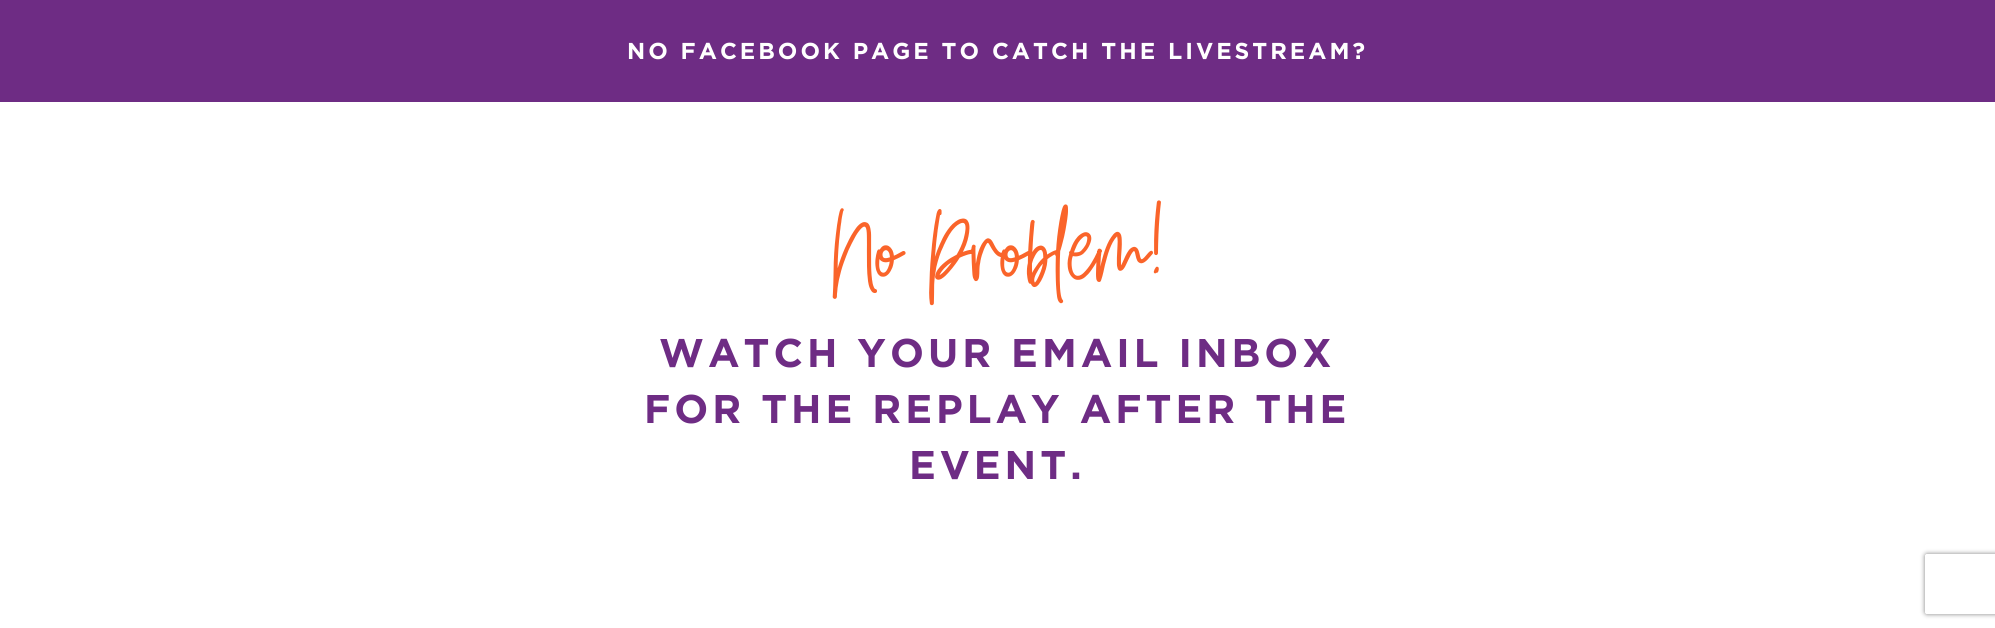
#include <cairo.h>
#include <math.h>
#include <stddef.h>

static cairo_t *ctx;

static void use_color(int r, int g, int b) {
    cairo_set_source_rgb(ctx, r / 255.0, g / 255.0, b / 255.0);
}

static void spaced_text(double x, double y, const char *s, double letter, double word) {
    cairo_move_to(ctx, x, y);
    while (*s) {
        char ch[5] = {0};
        int n = 0;
        do ch[n++] = *s++; while ((*s & 0xC0) == 0x80);
        cairo_show_text(ctx, ch);
        cairo_rel_move_to(ctx, letter + word * (*ch == ' '), 0);
    }
}

static void round_rect(double x, double y, double w, double h, double r) {
    cairo_new_sub_path(ctx);
    cairo_arc(ctx, x + w - r, y + h - r, r, 0, M_PI / 2);
    cairo_arc(ctx, x + r, y + h - r, r, M_PI / 2, M_PI);
    cairo_arc(ctx, x + r, y + r, r, M_PI, 1.5 * M_PI);
    cairo_arc(ctx, x + w - r, y + r, r, 1.5 * M_PI, 2 * M_PI);
    cairo_close_path(ctx);
}

static void shadow(double x, double y, double w, double h, double r, double blur, double alpha) {
    cairo_push_group_with_content(ctx, CAIRO_CONTENT_ALPHA);
    cairo_set_operator(ctx, CAIRO_OPERATOR_SOURCE);
    for (int i = 15; i >= -15 && fmin(w, h) + blur * i / 3 > 0; i -= 2) {
        double e = blur * i / 6;
        cairo_set_source_rgba(ctx, 0, 0, 0, alpha * erfc((i - 1) / 8.5) / 2);
        round_rect(x - e, y - e, w + 2 * e, h + 2 * e, fmax(0, fmin(r + e + blur * .6, fmin(w, h) / 2 + e)));
        cairo_fill(ctx);
    }
    cairo_pattern_t *soft = cairo_pop_group(ctx);
    cairo_mask(ctx, soft);
    cairo_pattern_destroy(soft);
}

int main(void) {
    cairo_surface_t *surface = cairo_image_surface_create(CAIRO_FORMAT_RGB24, 1995, 628);
    ctx = cairo_create(surface);
    cairo_font_options_t *options = cairo_font_options_create();
    cairo_font_options_set_hint_metrics(options, CAIRO_HINT_METRICS_OFF);
    cairo_font_options_set_hint_style(options, CAIRO_HINT_STYLE_NONE);
    cairo_set_font_options(ctx, options);
    cairo_set_miter_limit(ctx, 4);
    use_color(255, 255, 255);
    cairo_paint(ctx);
    use_color(110, 44, 132);
    cairo_rectangle(ctx, 0, 0, 1995, 102);
    cairo_fill(ctx);
    cairo_select_font_face(ctx, "Gotham", CAIRO_FONT_SLANT_NORMAL, CAIRO_FONT_WEIGHT_BOLD);
    cairo_set_font_size(ctx, 23);
    use_color(255, 255, 255);
    spaced_text(627, 59, "NO FACEBOOK PAGE TO CATCH THE LIVESTREAM?", 3, 0);
    cairo_select_font_face(ctx, "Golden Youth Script", CAIRO_FONT_SLANT_NORMAL, CAIRO_FONT_WEIGHT_NORMAL);
    cairo_set_font_size(ctx, 95);
    use_color(250, 100, 42);
    cairo_move_to(ctx, 831, 282);
    cairo_show_text(ctx, "No Problem!");
    cairo_select_font_face(ctx, "Gotham", CAIRO_FONT_SLANT_NORMAL, CAIRO_FONT_WEIGHT_BOLD);
    cairo_set_font_size(ctx, 40);
    use_color(110, 44, 132);
    spaced_text(659, 367, "WATCH YOUR EMAIL INBOX", 4, 0);
    spaced_text(644, 423, "FOR THE REPLAY AFTER THE", 4, 0);
    spaced_text(909, 479, "EVENT.", 4, 0);
    cairo_save(ctx);
    cairo_set_fill_rule(ctx, CAIRO_FILL_RULE_EVEN_ODD);
    cairo_new_path(ctx);
    cairo_move_to(ctx, 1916, 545);
    cairo_line_to(ctx, 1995, 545);
    cairo_line_to(ctx, 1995, 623);
    cairo_line_to(ctx, 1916, 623);
    cairo_close_path(ctx);
    cairo_move_to(ctx, 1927, 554);
    cairo_line_to(ctx, 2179, 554);
    cairo_curve_to(ctx, 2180, 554, 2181, 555, 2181, 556);
    cairo_line_to(ctx, 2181, 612);
    cairo_curve_to(ctx, 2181, 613, 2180, 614, 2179, 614);
    cairo_line_to(ctx, 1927, 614);
    cairo_curve_to(ctx, 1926, 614, 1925, 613, 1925, 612);
    cairo_line_to(ctx, 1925, 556);
    cairo_curve_to(ctx, 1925, 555, 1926, 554, 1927, 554);
    cairo_close_path(ctx);
    cairo_clip(ctx);
    use_color(128, 128, 128);
    shadow(1925, 554, 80, 60, 2, 2.5, 1);
    cairo_restore(ctx);
    cairo_surface_write_to_png(surface, "result.png");
    cairo_font_options_destroy(options);
    cairo_destroy(ctx);
    cairo_surface_destroy(surface);
    return 0;
}
